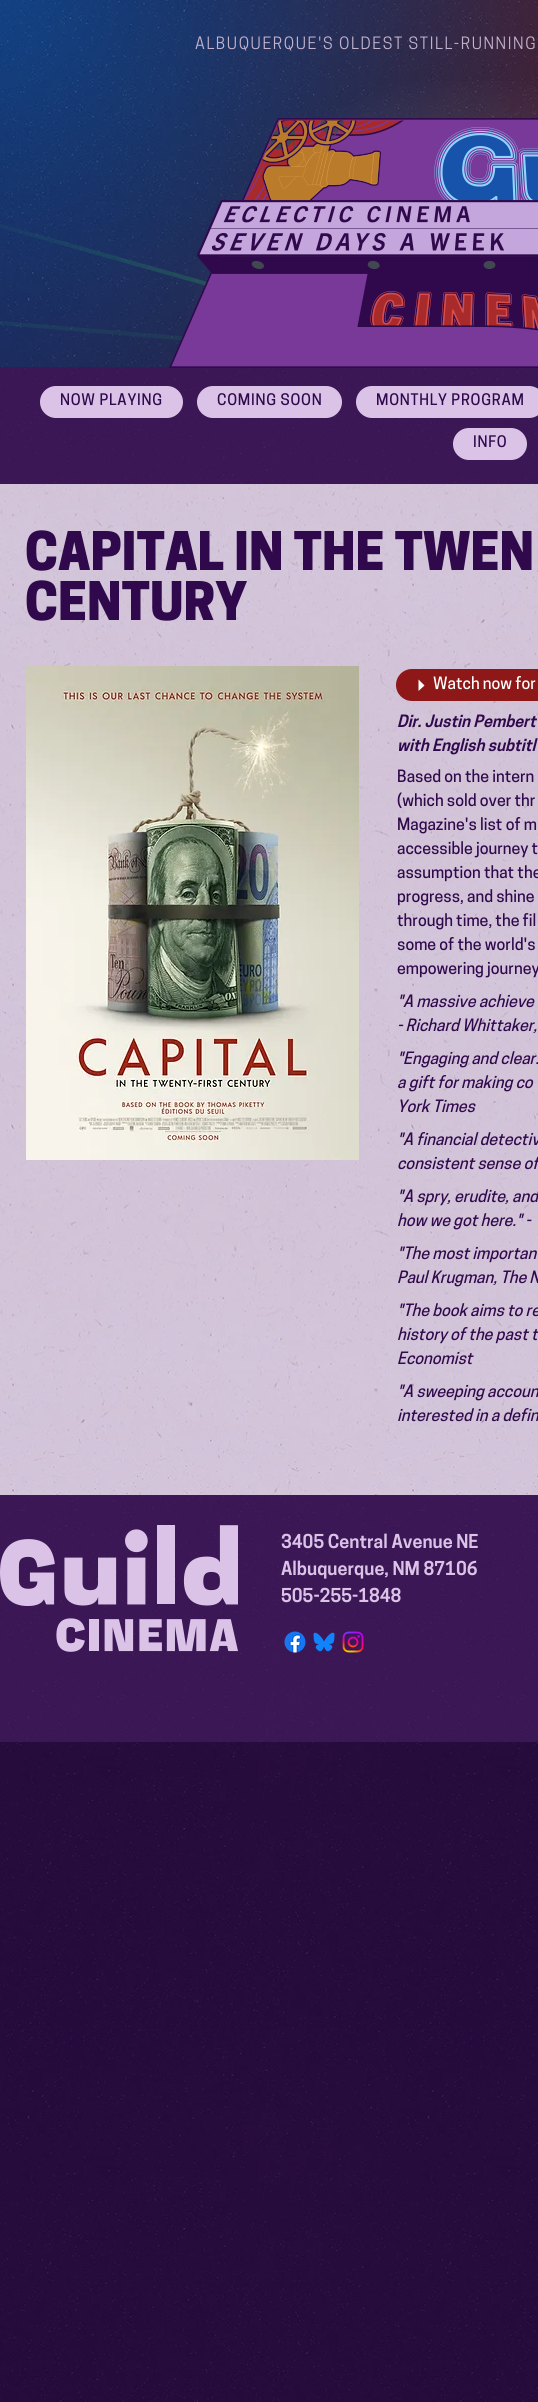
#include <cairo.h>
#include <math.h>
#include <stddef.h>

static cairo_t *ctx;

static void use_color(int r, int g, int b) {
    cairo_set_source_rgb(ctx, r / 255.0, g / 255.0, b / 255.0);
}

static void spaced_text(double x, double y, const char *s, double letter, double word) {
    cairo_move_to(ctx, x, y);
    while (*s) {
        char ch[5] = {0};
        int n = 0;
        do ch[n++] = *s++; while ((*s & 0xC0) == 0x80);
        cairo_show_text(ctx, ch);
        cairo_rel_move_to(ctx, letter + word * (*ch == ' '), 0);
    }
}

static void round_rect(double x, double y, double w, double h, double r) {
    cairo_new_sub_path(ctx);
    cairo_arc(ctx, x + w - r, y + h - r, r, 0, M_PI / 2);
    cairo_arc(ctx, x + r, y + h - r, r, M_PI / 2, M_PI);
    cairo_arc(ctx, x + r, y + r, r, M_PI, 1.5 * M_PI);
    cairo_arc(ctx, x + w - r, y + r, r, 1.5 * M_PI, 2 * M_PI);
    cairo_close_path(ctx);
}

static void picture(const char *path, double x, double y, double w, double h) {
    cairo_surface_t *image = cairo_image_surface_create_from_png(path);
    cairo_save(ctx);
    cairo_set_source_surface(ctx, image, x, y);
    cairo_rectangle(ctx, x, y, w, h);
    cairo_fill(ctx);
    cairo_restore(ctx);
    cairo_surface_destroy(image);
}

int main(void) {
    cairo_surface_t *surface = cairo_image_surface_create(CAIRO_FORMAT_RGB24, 538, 2402);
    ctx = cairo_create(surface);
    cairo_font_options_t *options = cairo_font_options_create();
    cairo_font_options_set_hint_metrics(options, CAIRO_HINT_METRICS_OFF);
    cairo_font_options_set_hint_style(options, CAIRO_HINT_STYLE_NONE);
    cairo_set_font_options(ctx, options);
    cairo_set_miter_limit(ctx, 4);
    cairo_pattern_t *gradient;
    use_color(48, 9, 76);
    cairo_paint(ctx);
    picture("img1.png", 0, 0, 538, 2402);
    cairo_set_source_rgba(ctx, 0.365, 0.157, 0.482, 0.4);
    cairo_rectangle(ctx, 0, 0, 538, 484);
    cairo_fill(ctx);
    gradient = cairo_pattern_create_radial(479, 182, 0, 479, 182, 534);
    cairo_pattern_add_color_stop_rgba(gradient, 0, 0.078, 0.078, 0.082, 1);
    cairo_pattern_add_color_stop_rgba(gradient, 1, 0.078, 0.078, 0.082, 0);
    cairo_set_source(ctx, gradient);
    cairo_pattern_destroy(gradient);
    cairo_rectangle(ctx, 0, 0, 538, 367);
    cairo_fill(ctx);
    gradient = cairo_pattern_create_radial(980, 0, 0, 980, 0, 1046);
    cairo_pattern_add_color_stop_rgba(gradient, 0, 0.835, 0.133, 0.133, 1);
    cairo_pattern_add_color_stop_rgba(gradient, 1, 0.835, 0.133, 0.133, 0);
    cairo_set_source(ctx, gradient);
    cairo_pattern_destroy(gradient);
    cairo_rectangle(ctx, 0, 0, 538, 367);
    cairo_fill(ctx);
    gradient = cairo_pattern_create_radial(0, 0, 0, 0, 0, 1046);
    cairo_pattern_add_color_stop_rgba(gradient, 0, 0.078, 0.404, 0.847, 1);
    cairo_pattern_add_color_stop_rgba(gradient, 0.7, 0.078, 0.404, 0.847, 0);
    cairo_set_source(ctx, gradient);
    cairo_pattern_destroy(gradient);
    cairo_rectangle(ctx, 0, 0, 538, 367);
    cairo_fill(ctx);
    gradient = cairo_pattern_create_radial(471, 367, 0, 471, 367, 627);
    cairo_pattern_add_color_stop_rgba(gradient, 0, 0.859, 0.765, 0.91, 0.8);
    cairo_pattern_add_color_stop_rgba(gradient, 0.47, 0.859, 0.765, 0.91, 0);
    cairo_set_source(ctx, gradient);
    cairo_pattern_destroy(gradient);
    cairo_rectangle(ctx, 187, 81, 351, 248);
    cairo_fill(ctx);
    picture("img2.png", 0, 0, 538, 367);
    cairo_select_font_face(ctx, "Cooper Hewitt", CAIRO_FONT_SLANT_NORMAL, CAIRO_FONT_WEIGHT_NORMAL);
    cairo_set_font_size(ctx, 16);
    use_color(195, 179, 206);
    spaced_text(195, 49, "ALBUQUERQUE'S OLDEST STILL-RUNNING", 1.6, 0);
    picture("img3.png", 0, 224, 208, 116);
    picture("img4.png", 169, 118, 369, 250);
    use_color(219, 195, 232);
    round_rect(40, 386, 143, 32, 16);
    cairo_fill(ctx);
    cairo_select_font_face(ctx, "Cooper Hewitt Medium", CAIRO_FONT_SLANT_NORMAL, CAIRO_FONT_WEIGHT_NORMAL);
    cairo_set_font_size(ctx, 15);
    use_color(48, 9, 76);
    spaced_text(60, 405, "NOW PLAYING", 0.75, 0);
    use_color(219, 195, 232);
    round_rect(197, 386, 145, 32, 16);
    cairo_fill(ctx);
    use_color(48, 9, 76);
    spaced_text(217, 405, "COMING SOON", 0.75, 0);
    use_color(219, 195, 232);
    round_rect(356, 386, 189, 32, 16);
    cairo_fill(ctx);
    use_color(48, 9, 76);
    spaced_text(376, 405, "MONTHLY PROGRAM", 0.75, 0);
    use_color(219, 195, 232);
    round_rect(453, 428, 74, 32, 16);
    cairo_fill(ctx);
    use_color(48, 9, 76);
    spaced_text(473, 447, "INFO", 0.75, 0);
    cairo_set_source_rgba(ctx, 0.859, 0.765, 0.91, 0.85);
    cairo_rectangle(ctx, 0, 484, 538, 955);
    cairo_fill(ctx);
    picture("img5.png", 0, 484, 538, 955);
    cairo_select_font_face(ctx, "Cooper Hewitt Black", CAIRO_FONT_SLANT_NORMAL, CAIRO_FONT_WEIGHT_NORMAL);
    cairo_set_font_size(ctx, 50);
    use_color(48, 9, 76);
    cairo_move_to(ctx, 25, 570);
    cairo_show_text(ctx, "CAPITAL IN THE TWEN");
    cairo_move_to(ctx, 25, 620);
    cairo_show_text(ctx, "CENTURY");
    picture("img6.png", 26, 666, 333, 494);
    use_color(142, 23, 23);
    round_rect(396, 669, 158, 32, 16);
    cairo_fill(ctx);
    use_color(255, 255, 255);
    cairo_new_path(ctx);
    cairo_move_to(ctx, 418.5, 679.5);
    cairo_line_to(ctx, 424.5, 685.5);
    cairo_line_to(ctx, 418.5, 691);
    cairo_close_path(ctx);
    cairo_fill(ctx);
    cairo_select_font_face(ctx, "Cooper Hewitt Medium", CAIRO_FONT_SLANT_NORMAL, CAIRO_FONT_WEIGHT_NORMAL);
    cairo_set_font_size(ctx, 16);
    cairo_move_to(ctx, 433, 689);
    cairo_show_text(ctx, "Watch now for");
    cairo_select_font_face(ctx, "Cooper Hewitt SemiBold", CAIRO_FONT_SLANT_ITALIC, CAIRO_FONT_WEIGHT_NORMAL);
    use_color(48, 9, 76);
    cairo_move_to(ctx, 397, 727);
    cairo_show_text(ctx, "Dir. Justin Pembert");
    cairo_move_to(ctx, 397, 751);
    cairo_show_text(ctx, "with English subtitl");
    cairo_select_font_face(ctx, "Cooper Hewitt Medium", CAIRO_FONT_SLANT_NORMAL, CAIRO_FONT_WEIGHT_NORMAL);
    cairo_move_to(ctx, 397, 782);
    cairo_show_text(ctx, "Based on the intern");
    cairo_move_to(ctx, 397, 806);
    cairo_show_text(ctx, "(which sold over thr");
    cairo_move_to(ctx, 397, 830);
    cairo_show_text(ctx, "Magazine's list of m");
    cairo_move_to(ctx, 397, 854);
    cairo_show_text(ctx, "accessible journey t");
    cairo_move_to(ctx, 397, 878);
    cairo_show_text(ctx, "assumption that the");
    cairo_move_to(ctx, 397, 902);
    cairo_show_text(ctx, "progress, and shine");
    cairo_move_to(ctx, 397, 926);
    cairo_show_text(ctx, "through time, the fil");
    cairo_move_to(ctx, 397, 950);
    cairo_show_text(ctx, "some of the world's");
    cairo_move_to(ctx, 397, 974);
    cairo_show_text(ctx, "empowering journey");
    cairo_select_font_face(ctx, "Cooper Hewitt Medium", CAIRO_FONT_SLANT_ITALIC, CAIRO_FONT_WEIGHT_NORMAL);
    cairo_move_to(ctx, 397, 1007);
    cairo_show_text(ctx, "\"A massive achieve");
    cairo_move_to(ctx, 397, 1031);
    cairo_show_text(ctx, "- Richard Whittaker,");
    cairo_move_to(ctx, 397, 1064);
    cairo_show_text(ctx, "\"Engaging and clear.");
    cairo_move_to(ctx, 397, 1088);
    cairo_show_text(ctx, "a gift for making co");
    cairo_move_to(ctx, 397, 1112);
    cairo_show_text(ctx, "York Times");
    cairo_move_to(ctx, 397, 1145);
    cairo_show_text(ctx, "\"A financial detectiv");
    cairo_move_to(ctx, 397, 1169);
    cairo_show_text(ctx, "consistent sense of");
    cairo_move_to(ctx, 397, 1202);
    cairo_show_text(ctx, "\"A spry, erudite, and");
    cairo_move_to(ctx, 397, 1226);
    cairo_show_text(ctx, "how we got here.\" -");
    cairo_move_to(ctx, 397, 1259);
    cairo_show_text(ctx, "\"The most importan");
    cairo_move_to(ctx, 397, 1283);
    cairo_show_text(ctx, "Paul Krugman, The N");
    cairo_move_to(ctx, 397, 1316);
    cairo_show_text(ctx, "\"The book aims to re");
    cairo_move_to(ctx, 397, 1340);
    cairo_show_text(ctx, "history of the past t");
    cairo_move_to(ctx, 397, 1364);
    cairo_show_text(ctx, "Economist");
    cairo_move_to(ctx, 397, 1397);
    cairo_show_text(ctx, "\"A sweeping accoun");
    cairo_move_to(ctx, 397, 1421);
    cairo_show_text(ctx, "interested in a defin");
    cairo_set_source_rgba(ctx, 0.859, 0.765, 0.91, 0.85);
    cairo_rectangle(ctx, 0, 1439, 538, 56);
    cairo_fill(ctx);
    picture("img7.png", 0, 1439, 538, 56);
    cairo_set_source_rgba(ctx, 0.365, 0.157, 0.482, 0.4);
    cairo_rectangle(ctx, 0, 1495, 538, 247);
    cairo_fill(ctx);
    picture("img8.png", 0, 1525, 238, 127);
    cairo_select_font_face(ctx, "Cooper Hewitt SemiBold", CAIRO_FONT_SLANT_NORMAL, CAIRO_FONT_WEIGHT_NORMAL);
    cairo_set_font_size(ctx, 18);
    use_color(219, 195, 232);
    cairo_move_to(ctx, 281, 1548);
    cairo_show_text(ctx, "3405 Central Avenue NE");
    cairo_move_to(ctx, 281, 1575);
    cairo_show_text(ctx, "Albuquerque, NM 87106");
    cairo_move_to(ctx, 281, 1602);
    cairo_show_text(ctx, "505-255-1848");
    picture("img9.png", 284, 1631, 22, 22);
    picture("img10.png", 313, 1632, 22, 20);
    picture("img11.png", 342, 1631, 22, 22);
    cairo_surface_write_to_png(surface, "result.png");
    cairo_font_options_destroy(options);
    cairo_destroy(ctx);
    cairo_surface_destroy(surface);
    return 0;
}
